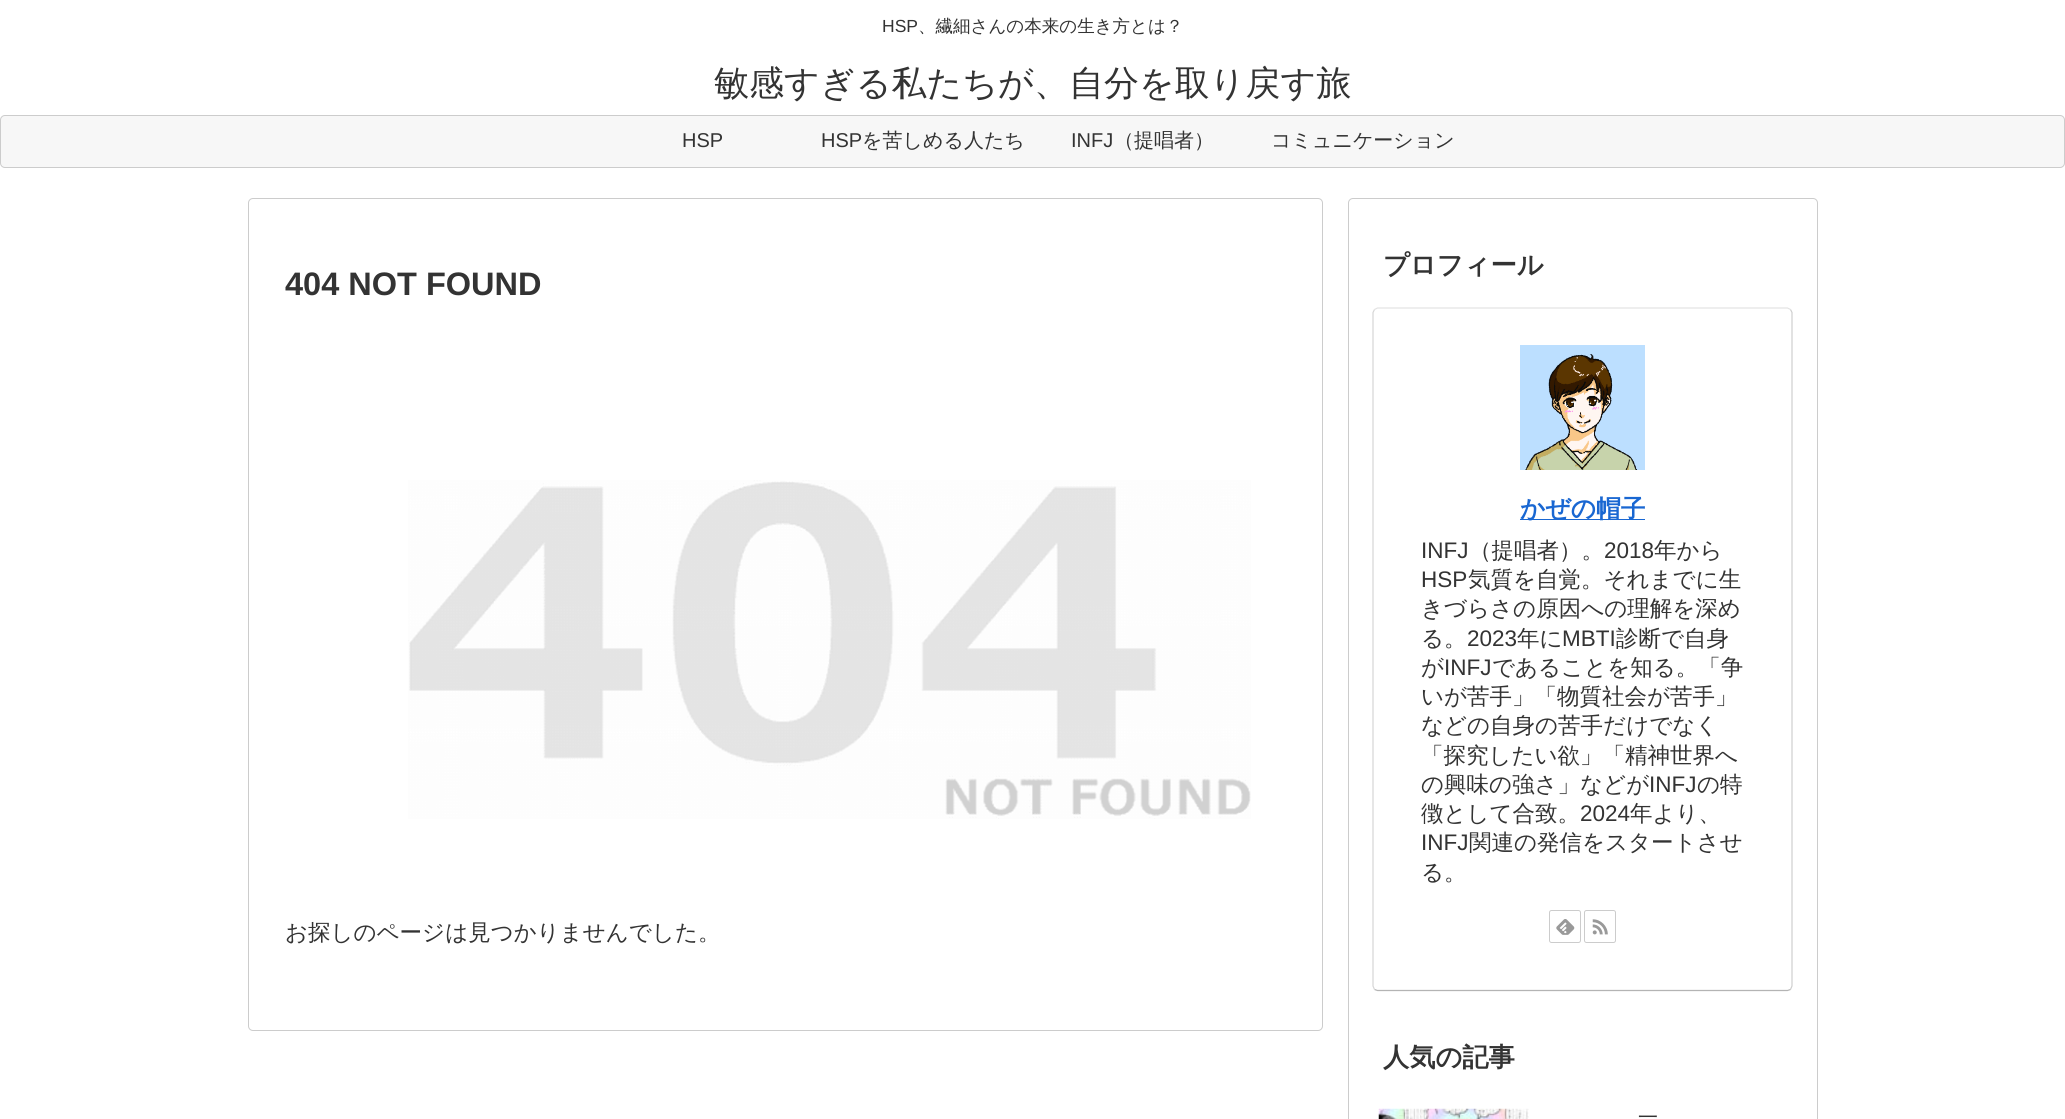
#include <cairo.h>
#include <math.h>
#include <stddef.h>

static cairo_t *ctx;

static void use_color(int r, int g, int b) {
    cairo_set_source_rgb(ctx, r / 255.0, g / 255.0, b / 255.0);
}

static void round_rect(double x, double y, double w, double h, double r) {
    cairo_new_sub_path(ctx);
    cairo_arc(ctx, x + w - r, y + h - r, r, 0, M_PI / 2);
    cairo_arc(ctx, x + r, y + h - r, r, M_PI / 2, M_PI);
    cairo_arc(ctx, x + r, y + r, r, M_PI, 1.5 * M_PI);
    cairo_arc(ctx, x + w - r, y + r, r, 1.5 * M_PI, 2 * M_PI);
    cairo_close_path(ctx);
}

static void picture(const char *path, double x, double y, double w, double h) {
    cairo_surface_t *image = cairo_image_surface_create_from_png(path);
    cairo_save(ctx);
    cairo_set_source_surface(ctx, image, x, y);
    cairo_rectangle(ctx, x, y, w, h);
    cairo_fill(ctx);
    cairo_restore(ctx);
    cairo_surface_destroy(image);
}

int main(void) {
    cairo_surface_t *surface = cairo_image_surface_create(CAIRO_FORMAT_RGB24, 2065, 1119);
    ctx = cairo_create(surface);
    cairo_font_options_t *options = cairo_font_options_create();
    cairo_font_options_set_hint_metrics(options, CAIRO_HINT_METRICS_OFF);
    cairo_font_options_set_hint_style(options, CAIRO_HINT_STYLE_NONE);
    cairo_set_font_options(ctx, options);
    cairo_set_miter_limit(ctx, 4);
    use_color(255, 255, 255);
    cairo_paint(ctx);
    cairo_select_font_face(ctx, "Liberation Sans", CAIRO_FONT_SLANT_NORMAL, CAIRO_FONT_WEIGHT_NORMAL);
    cairo_set_font_size(ctx, 17.5);
    use_color(51, 51, 51);
    cairo_move_to(ctx, 882, 32);
    cairo_show_text(ctx, "HSP");
    cairo_select_font_face(ctx, "WenQuanYi Zen Hei Medium", CAIRO_FONT_SLANT_NORMAL, CAIRO_FONT_WEIGHT_NORMAL);
    cairo_move_to(ctx, 918, 32);
    cairo_show_text(ctx, "、繊細さんの本来の生き方とは？");
    cairo_set_font_size(ctx, 35);
    cairo_move_to(ctx, 714, 95);
    cairo_show_text(ctx, "敏感すぎる私たちが、自分を取り戻す旅");
    use_color(247, 247, 247);
    round_rect(0.5, 115.5, 2064, 52, 4.5);
    cairo_fill_preserve(ctx);
    use_color(204, 204, 204);
    cairo_set_line_width(ctx, 1);
    cairo_stroke(ctx);
    cairo_select_font_face(ctx, "Liberation Sans", CAIRO_FONT_SLANT_NORMAL, CAIRO_FONT_WEIGHT_NORMAL);
    cairo_set_font_size(ctx, 20);
    use_color(51, 51, 51);
    cairo_move_to(ctx, 682, 147);
    cairo_show_text(ctx, "HSP");
    cairo_move_to(ctx, 821, 147);
    cairo_show_text(ctx, "HSP");
    cairo_select_font_face(ctx, "WenQuanYi Zen Hei Medium", CAIRO_FONT_SLANT_NORMAL, CAIRO_FONT_WEIGHT_NORMAL);
    cairo_move_to(ctx, 862, 147);
    cairo_show_text(ctx, "を苦しめる人たち");
    cairo_select_font_face(ctx, "Liberation Sans", CAIRO_FONT_SLANT_NORMAL, CAIRO_FONT_WEIGHT_NORMAL);
    cairo_move_to(ctx, 1071, 147);
    cairo_show_text(ctx, "INFJ");
    cairo_select_font_face(ctx, "WenQuanYi Zen Hei Medium", CAIRO_FONT_SLANT_NORMAL, CAIRO_FONT_WEIGHT_NORMAL);
    cairo_move_to(ctx, 1114, 147);
    cairo_show_text(ctx, "（提唱者）");
    cairo_move_to(ctx, 1271, 147);
    cairo_show_text(ctx, "コミュニケーション");
    round_rect(248.5, 198.5, 1074, 832, 4.5);
    use_color(204, 204, 204);
    cairo_stroke(ctx);
    cairo_select_font_face(ctx, "Liberation Sans", CAIRO_FONT_SLANT_NORMAL, CAIRO_FONT_WEIGHT_BOLD);
    cairo_set_font_size(ctx, 32.5);
    use_color(51, 51, 51);
    cairo_move_to(ctx, 285, 295);
    cairo_show_text(ctx, "404 NOT FOUND");
    picture("img1.png", 408, 480, 843, 339);
    cairo_select_font_face(ctx, "WenQuanYi Zen Hei Medium", CAIRO_FONT_SLANT_NORMAL, CAIRO_FONT_WEIGHT_NORMAL);
    cairo_set_font_size(ctx, 22.5);
    cairo_move_to(ctx, 285, 940);
    cairo_show_text(ctx, "お探しのページは見つかりませんでした。");
    round_rect(1348.5, 198.5, 469, 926, 4.5);
    use_color(204, 204, 204);
    cairo_stroke(ctx);
    cairo_select_font_face(ctx, "WenQuanYi Zen Hei", CAIRO_FONT_SLANT_NORMAL, CAIRO_FONT_WEIGHT_BOLD);
    cairo_set_font_size(ctx, 26.25);
    use_color(51, 51, 51);
    cairo_move_to(ctx, 1383, 274);
    cairo_show_text(ctx, "プロフィール");
    cairo_new_path(ctx);
    cairo_move_to(ctx, 1374.5, 309.5);
    cairo_line_to(ctx, 1377.5, 308);
    cairo_line_to(ctx, 1787.5, 308);
    cairo_line_to(ctx, 1790.5, 309.5);
    use_color(227, 227, 227);
    cairo_set_line_width(ctx, 1.2);
    cairo_stroke(ctx);
    cairo_new_path(ctx);
    cairo_move_to(ctx, 1790.5, 309.5);
    cairo_line_to(ctx, 1792, 312.5);
    cairo_line_to(ctx, 1792, 986);
    cairo_line_to(ctx, 1790.5, 989.5);
    use_color(206, 206, 206);
    cairo_stroke(ctx);
    cairo_new_path(ctx);
    cairo_move_to(ctx, 1790.5, 989.5);
    cairo_line_to(ctx, 1787.5, 990.5);
    cairo_line_to(ctx, 1377.5, 990.5);
    cairo_line_to(ctx, 1374.5, 989.5);
    use_color(180, 180, 180);
    cairo_stroke(ctx);
    cairo_new_path(ctx);
    cairo_move_to(ctx, 1374.5, 989.5);
    cairo_line_to(ctx, 1373, 986);
    cairo_line_to(ctx, 1373, 312.5);
    cairo_line_to(ctx, 1374.5, 309.5);
    use_color(214, 214, 214);
    cairo_stroke(ctx);
    picture("img2.png", 1520, 345, 125, 125);
    use_color(25, 103, 210);
    cairo_rectangle(ctx, 1520, 519, 125, 1);
    cairo_fill(ctx);
    cairo_set_font_size(ctx, 24.75);
    cairo_move_to(ctx, 1520, 517);
    cairo_show_text(ctx, "かぜの帽子");
    cairo_select_font_face(ctx, "Liberation Sans", CAIRO_FONT_SLANT_NORMAL, CAIRO_FONT_WEIGHT_NORMAL);
    cairo_set_font_size(ctx, 22.5);
    use_color(51, 51, 51);
    cairo_move_to(ctx, 1421, 558);
    cairo_show_text(ctx, "INFJ");
    cairo_select_font_face(ctx, "WenQuanYi Zen Hei Medium", CAIRO_FONT_SLANT_NORMAL, CAIRO_FONT_WEIGHT_NORMAL);
    cairo_move_to(ctx, 1469, 558);
    cairo_show_text(ctx, "（提唱者）。");
    cairo_select_font_face(ctx, "Liberation Sans", CAIRO_FONT_SLANT_NORMAL, CAIRO_FONT_WEIGHT_NORMAL);
    cairo_move_to(ctx, 1604, 558);
    cairo_show_text(ctx, "2018");
    cairo_select_font_face(ctx, "WenQuanYi Zen Hei Medium", CAIRO_FONT_SLANT_NORMAL, CAIRO_FONT_WEIGHT_NORMAL);
    cairo_move_to(ctx, 1654, 558);
    cairo_show_text(ctx, "年から");
    cairo_select_font_face(ctx, "Liberation Sans", CAIRO_FONT_SLANT_NORMAL, CAIRO_FONT_WEIGHT_NORMAL);
    cairo_move_to(ctx, 1421, 587);
    cairo_show_text(ctx, "HSP");
    cairo_select_font_face(ctx, "WenQuanYi Zen Hei Medium", CAIRO_FONT_SLANT_NORMAL, CAIRO_FONT_WEIGHT_NORMAL);
    cairo_move_to(ctx, 1468, 587);
    cairo_show_text(ctx, "気質を自覚。それまでに生");
    cairo_move_to(ctx, 1421, 616);
    cairo_show_text(ctx, "きづらさの原因への理解を深め");
    cairo_move_to(ctx, 1421, 646);
    cairo_show_text(ctx, "る。");
    cairo_select_font_face(ctx, "Liberation Sans", CAIRO_FONT_SLANT_NORMAL, CAIRO_FONT_WEIGHT_NORMAL);
    cairo_move_to(ctx, 1467, 646);
    cairo_show_text(ctx, "2023");
    cairo_select_font_face(ctx, "WenQuanYi Zen Hei Medium", CAIRO_FONT_SLANT_NORMAL, CAIRO_FONT_WEIGHT_NORMAL);
    cairo_move_to(ctx, 1517, 646);
    cairo_show_text(ctx, "年に");
    cairo_select_font_face(ctx, "Liberation Sans", CAIRO_FONT_SLANT_NORMAL, CAIRO_FONT_WEIGHT_NORMAL);
    cairo_move_to(ctx, 1562, 646);
    cairo_show_text(ctx, "MBTI");
    cairo_select_font_face(ctx, "WenQuanYi Zen Hei Medium", CAIRO_FONT_SLANT_NORMAL, CAIRO_FONT_WEIGHT_NORMAL);
    cairo_move_to(ctx, 1616, 646);
    cairo_show_text(ctx, "診断で自身");
    cairo_move_to(ctx, 1421, 675);
    cairo_show_text(ctx, "が");
    cairo_select_font_face(ctx, "Liberation Sans", CAIRO_FONT_SLANT_NORMAL, CAIRO_FONT_WEIGHT_NORMAL);
    cairo_move_to(ctx, 1444, 675);
    cairo_show_text(ctx, "INFJ");
    cairo_select_font_face(ctx, "WenQuanYi Zen Hei Medium", CAIRO_FONT_SLANT_NORMAL, CAIRO_FONT_WEIGHT_NORMAL);
    cairo_move_to(ctx, 1492, 675);
    cairo_show_text(ctx, "であることを知る。「争");
    cairo_move_to(ctx, 1421, 704);
    cairo_show_text(ctx, "いが苦手」「物質社会が苦手」");
    cairo_move_to(ctx, 1421, 733);
    cairo_show_text(ctx, "などの自身の苦手だけでなく");
    cairo_move_to(ctx, 1421, 763);
    cairo_show_text(ctx, "「探究したい欲」「精神世界へ");
    cairo_move_to(ctx, 1421, 792);
    cairo_show_text(ctx, "の興味の強さ」などが");
    cairo_select_font_face(ctx, "Liberation Sans", CAIRO_FONT_SLANT_NORMAL, CAIRO_FONT_WEIGHT_NORMAL);
    cairo_move_to(ctx, 1649, 792);
    cairo_show_text(ctx, "INFJ");
    cairo_select_font_face(ctx, "WenQuanYi Zen Hei Medium", CAIRO_FONT_SLANT_NORMAL, CAIRO_FONT_WEIGHT_NORMAL);
    cairo_move_to(ctx, 1697, 792);
    cairo_show_text(ctx, "の特");
    cairo_move_to(ctx, 1421, 821);
    cairo_show_text(ctx, "徴として合致。");
    cairo_select_font_face(ctx, "Liberation Sans", CAIRO_FONT_SLANT_NORMAL, CAIRO_FONT_WEIGHT_NORMAL);
    cairo_move_to(ctx, 1580, 821);
    cairo_show_text(ctx, "2024");
    cairo_select_font_face(ctx, "WenQuanYi Zen Hei Medium", CAIRO_FONT_SLANT_NORMAL, CAIRO_FONT_WEIGHT_NORMAL);
    cairo_move_to(ctx, 1630, 821);
    cairo_show_text(ctx, "年より、");
    cairo_select_font_face(ctx, "Liberation Sans", CAIRO_FONT_SLANT_NORMAL, CAIRO_FONT_WEIGHT_NORMAL);
    cairo_move_to(ctx, 1421, 850);
    cairo_show_text(ctx, "INFJ");
    cairo_select_font_face(ctx, "WenQuanYi Zen Hei Medium", CAIRO_FONT_SLANT_NORMAL, CAIRO_FONT_WEIGHT_NORMAL);
    cairo_move_to(ctx, 1469, 850);
    cairo_show_text(ctx, "関連の発信をスタートさせ");
    cairo_move_to(ctx, 1421, 880);
    cairo_show_text(ctx, "る。");
    round_rect(1549.5, 910.5, 31, 32, 2);
    use_color(204, 204, 204);
    cairo_set_line_width(ctx, 1);
    cairo_stroke(ctx);
    picture("img3.png", 1556, 919, 19, 16);
    round_rect(1584.5, 910.5, 31, 32, 2);
    cairo_stroke(ctx);
    picture("img4.png", 1592, 919, 16, 16);
    cairo_select_font_face(ctx, "WenQuanYi Zen Hei", CAIRO_FONT_SLANT_NORMAL, CAIRO_FONT_WEIGHT_BOLD);
    cairo_set_font_size(ctx, 26.25);
    use_color(51, 51, 51);
    cairo_move_to(ctx, 1383, 1066);
    cairo_show_text(ctx, "人気の記事");
    picture("img5.png", 1378, 1108, 151, 11);
    cairo_select_font_face(ctx, "WenQuanYi Zen Hei Medium", CAIRO_FONT_SLANT_NORMAL, CAIRO_FONT_WEIGHT_NORMAL);
    cairo_set_font_size(ctx, 20);
    cairo_move_to(ctx, 1638, 1124);
    cairo_show_text(ctx, "一");
    cairo_surface_write_to_png(surface, "result.png");
    cairo_font_options_destroy(options);
    cairo_destroy(ctx);
    cairo_surface_destroy(surface);
    return 0;
}
